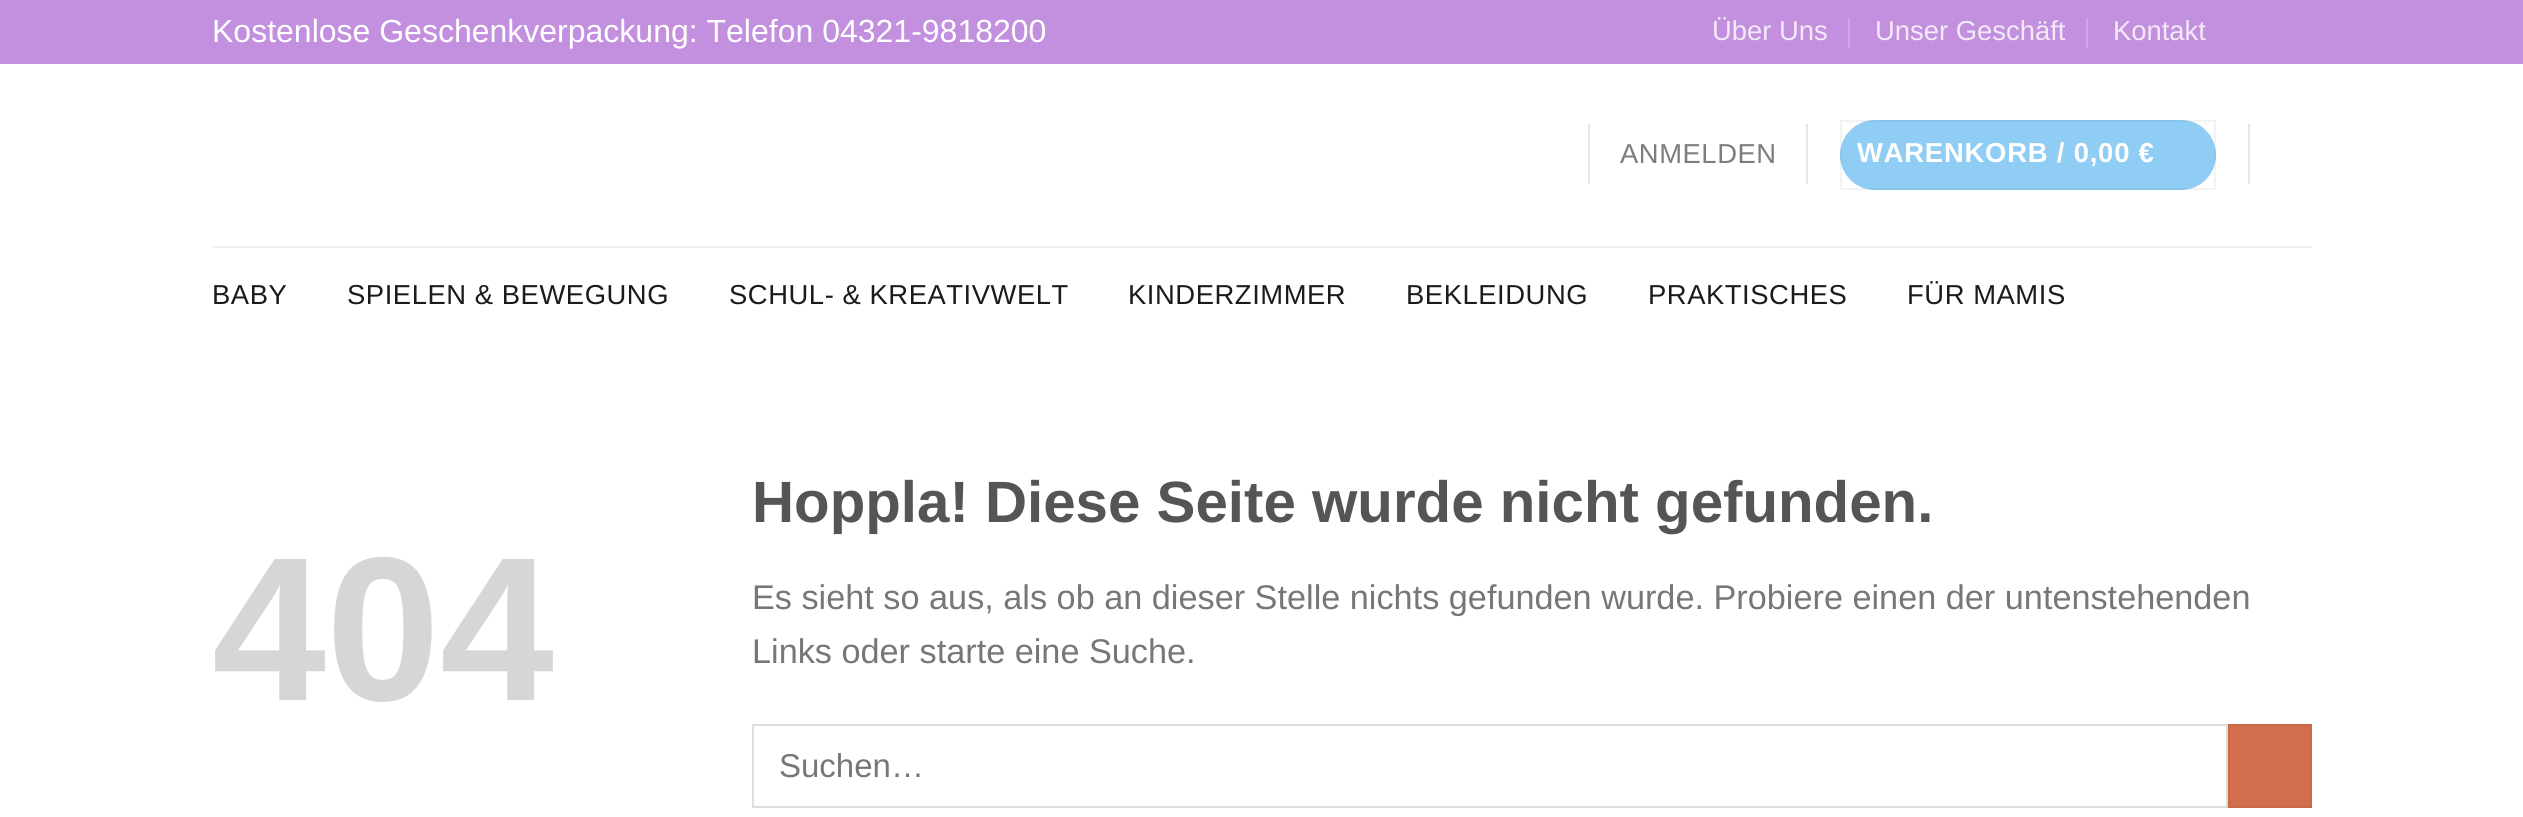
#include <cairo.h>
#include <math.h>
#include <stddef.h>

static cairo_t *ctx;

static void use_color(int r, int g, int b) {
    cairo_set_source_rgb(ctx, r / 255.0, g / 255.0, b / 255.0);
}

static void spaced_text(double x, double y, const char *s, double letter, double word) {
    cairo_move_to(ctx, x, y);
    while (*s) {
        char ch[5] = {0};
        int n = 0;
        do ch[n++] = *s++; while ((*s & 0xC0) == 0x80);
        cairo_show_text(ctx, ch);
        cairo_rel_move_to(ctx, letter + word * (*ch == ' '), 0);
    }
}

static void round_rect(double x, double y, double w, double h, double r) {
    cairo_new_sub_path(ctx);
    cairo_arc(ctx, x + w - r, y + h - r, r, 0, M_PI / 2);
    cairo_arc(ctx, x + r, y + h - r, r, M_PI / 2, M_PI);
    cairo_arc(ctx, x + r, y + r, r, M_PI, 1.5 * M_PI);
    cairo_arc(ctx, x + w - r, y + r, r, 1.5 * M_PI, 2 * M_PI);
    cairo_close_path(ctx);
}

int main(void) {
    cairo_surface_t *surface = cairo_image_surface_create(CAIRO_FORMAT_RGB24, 2523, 817);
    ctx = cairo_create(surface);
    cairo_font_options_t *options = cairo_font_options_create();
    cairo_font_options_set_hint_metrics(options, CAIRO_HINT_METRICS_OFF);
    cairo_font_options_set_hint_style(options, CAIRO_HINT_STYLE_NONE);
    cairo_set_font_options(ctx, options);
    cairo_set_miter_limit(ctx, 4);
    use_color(255, 255, 255);
    cairo_paint(ctx);
    use_color(194, 144, 222);
    cairo_rectangle(ctx, 0, 0, 2523, 64);
    cairo_fill(ctx);
    cairo_select_font_face(ctx, "Liberation Sans", CAIRO_FONT_SLANT_NORMAL, CAIRO_FONT_WEIGHT_NORMAL);
    cairo_set_font_size(ctx, 32);
    use_color(255, 255, 255);
    cairo_move_to(ctx, 212, 42);
    cairo_show_text(ctx, "Kostenlose Geschenkverpackung: Telefon 04321-9818200");
    cairo_set_font_size(ctx, 27.4);
    use_color(243, 233, 248);
    cairo_move_to(ctx, 1712, 40);
    cairo_show_text(ctx, "Über Uns");
    use_color(206, 166, 229);
    cairo_rectangle(ctx, 1848, 18, 2, 30);
    cairo_fill(ctx);
    use_color(243, 233, 248);
    cairo_move_to(ctx, 1875, 40);
    cairo_show_text(ctx, "Unser Geschäft");
    use_color(206, 166, 229);
    cairo_rectangle(ctx, 2086, 18, 2, 30);
    cairo_fill(ctx);
    use_color(243, 233, 248);
    cairo_move_to(ctx, 2113, 40);
    cairo_show_text(ctx, "Kontakt");
    use_color(230, 230, 230);
    cairo_rectangle(ctx, 1588, 124, 2, 60);
    cairo_fill(ctx);
    use_color(125, 125, 125);
    spaced_text(1620, 163, "ANMELDEN", 0.55, 0);
    use_color(230, 230, 230);
    cairo_rectangle(ctx, 1806, 124, 2, 60);
    cairo_fill(ctx);
    use_color(144, 205, 244);
    round_rect(1840, 120, 376, 70, 35);
    cairo_fill(ctx);
    cairo_rectangle(ctx, 1841, 121, 374, 68);
    cairo_set_source_rgba(ctx, 0, 0, 0, 0.05);
    cairo_stroke(ctx);
    cairo_select_font_face(ctx, "Liberation Sans", CAIRO_FONT_SLANT_NORMAL, CAIRO_FONT_WEIGHT_BOLD);
    use_color(255, 255, 255);
    spaced_text(1857, 162, "WARENKORB / 0,00 €", 0.8, 0);
    use_color(230, 230, 230);
    cairo_rectangle(ctx, 2248, 124, 2, 60);
    cairo_fill(ctx);
    use_color(241, 241, 241);
    cairo_rectangle(ctx, 212, 246, 2100, 2);
    cairo_fill(ctx);
    cairo_select_font_face(ctx, "Liberation Sans", CAIRO_FONT_SLANT_NORMAL, CAIRO_FONT_WEIGHT_NORMAL);
    use_color(29, 26, 26);
    spaced_text(212, 304, "BABY", 0.55, 0);
    spaced_text(347, 304, "SPIELEN & BEWEGUNG", 0.55, 0);
    spaced_text(729, 304, "SCHUL- & KREATIVWELT", 0.55, 0);
    spaced_text(1128, 304, "KINDERZIMMER", 0.55, 0);
    spaced_text(1406, 304, "BEKLEIDUNG", 0.55, 0);
    spaced_text(1648, 304, "PRAKTISCHES", 0.55, 0);
    spaced_text(1907, 304, "FÜR MAMIS", 0.55, 0);
    cairo_select_font_face(ctx, "Liberation Sans", CAIRO_FONT_SLANT_NORMAL, CAIRO_FONT_WEIGHT_BOLD);
    cairo_set_font_size(ctx, 205);
    use_color(214, 214, 214);
    cairo_move_to(ctx, 212, 700);
    cairo_show_text(ctx, "404");
    cairo_set_font_size(ctx, 58.25);
    use_color(85, 85, 85);
    cairo_move_to(ctx, 752, 522);
    cairo_show_text(ctx, "Hoppla! Diese Seite wurde nicht gefunden.");
    cairo_select_font_face(ctx, "Liberation Sans", CAIRO_FONT_SLANT_NORMAL, CAIRO_FONT_WEIGHT_NORMAL);
    cairo_set_font_size(ctx, 34.25);
    use_color(119, 119, 119);
    cairo_move_to(ctx, 752, 609);
    cairo_show_text(ctx, "Es sieht so aus, als ob an dieser Stelle nichts gefunden wurde. Probiere einen der untenstehenden");
    cairo_move_to(ctx, 752, 663);
    cairo_show_text(ctx, "Links oder starte eine Suche.");
    cairo_rectangle(ctx, 753, 725, 1474, 82);
    use_color(221, 221, 221);
    cairo_stroke(ctx);
    cairo_set_font_size(ctx, 33);
    use_color(119, 119, 119);
    cairo_move_to(ctx, 779, 777);
    cairo_show_text(ctx, "Suchen…");
    use_color(210, 110, 75);
    cairo_rectangle(ctx, 2229, 725, 82, 82);
    cairo_fill_preserve(ctx);
    use_color(200, 105, 71);
    cairo_stroke(ctx);
    cairo_surface_write_to_png(surface, "result.png");
    cairo_font_options_destroy(options);
    cairo_destroy(ctx);
    cairo_surface_destroy(surface);
    return 0;
}
